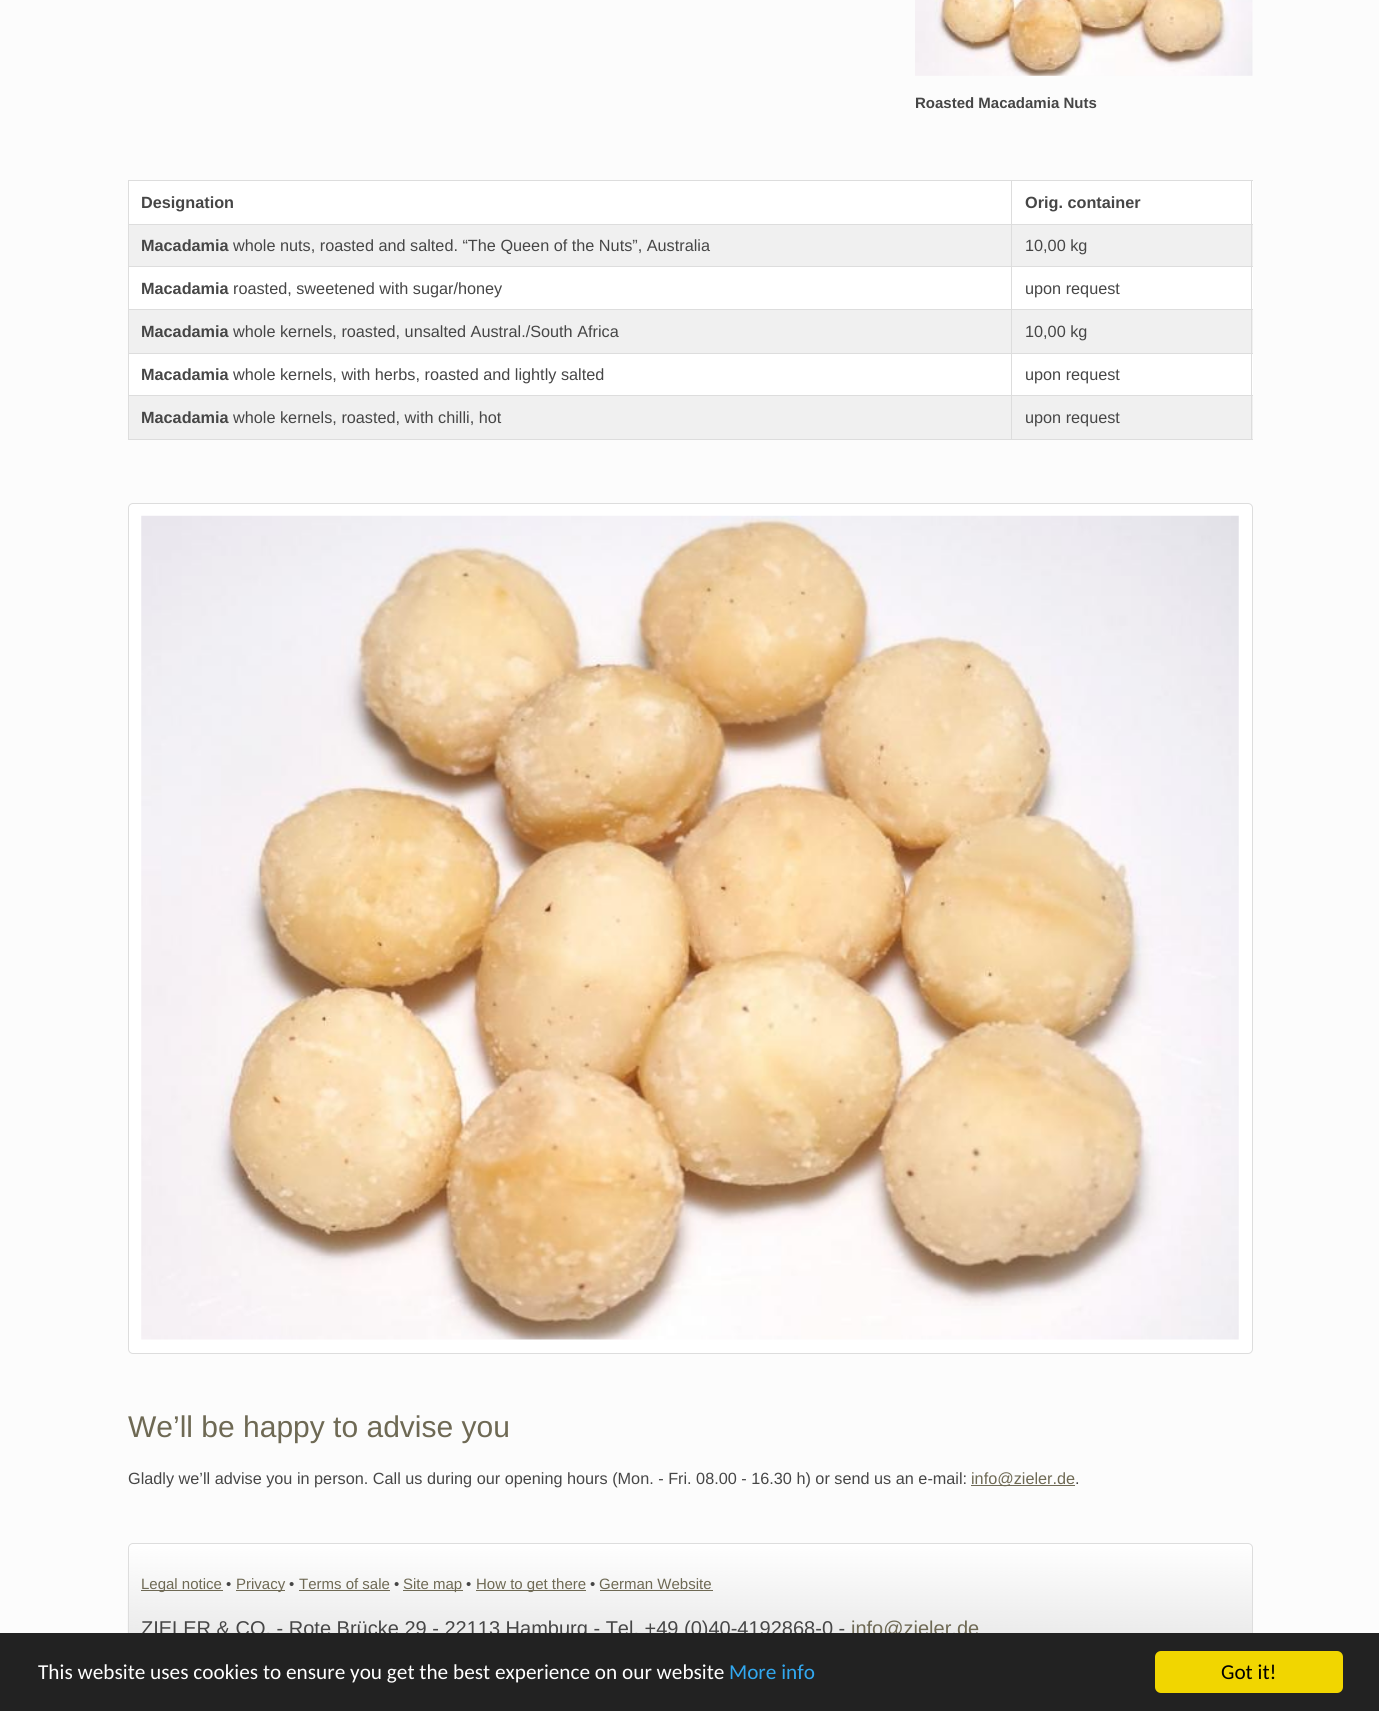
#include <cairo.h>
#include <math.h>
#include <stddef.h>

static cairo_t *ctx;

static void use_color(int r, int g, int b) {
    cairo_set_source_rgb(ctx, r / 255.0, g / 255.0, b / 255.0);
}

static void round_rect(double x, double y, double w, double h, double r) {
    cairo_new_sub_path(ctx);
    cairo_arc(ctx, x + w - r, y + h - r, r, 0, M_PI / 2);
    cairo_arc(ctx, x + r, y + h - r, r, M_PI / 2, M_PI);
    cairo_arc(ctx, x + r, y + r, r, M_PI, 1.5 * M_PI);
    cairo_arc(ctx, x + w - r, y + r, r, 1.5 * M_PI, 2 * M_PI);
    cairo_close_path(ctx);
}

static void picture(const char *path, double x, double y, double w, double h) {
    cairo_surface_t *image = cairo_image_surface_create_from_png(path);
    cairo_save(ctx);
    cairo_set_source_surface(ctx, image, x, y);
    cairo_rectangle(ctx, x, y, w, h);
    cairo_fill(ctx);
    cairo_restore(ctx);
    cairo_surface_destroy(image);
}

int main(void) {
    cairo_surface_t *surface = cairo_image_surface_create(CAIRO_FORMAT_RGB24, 1379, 1711);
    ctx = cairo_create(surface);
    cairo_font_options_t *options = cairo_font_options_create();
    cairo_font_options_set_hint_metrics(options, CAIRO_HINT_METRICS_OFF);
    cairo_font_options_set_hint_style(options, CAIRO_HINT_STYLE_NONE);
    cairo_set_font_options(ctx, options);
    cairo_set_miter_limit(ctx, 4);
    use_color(252, 252, 252);
    cairo_paint(ctx);
    picture("img1.png", 915, 0, 338, 76);
    cairo_select_font_face(ctx, "Liberation Sans", CAIRO_FONT_SLANT_NORMAL, CAIRO_FONT_WEIGHT_BOLD);
    cairo_set_font_size(ctx, 15);
    use_color(70, 70, 70);
    cairo_move_to(ctx, 915, 108);
    cairo_show_text(ctx, "Roasted Macadamia Nuts");
    use_color(255, 255, 255);
    cairo_rectangle(ctx, 129, 181, 882, 43);
    cairo_fill(ctx);
    use_color(221, 221, 221);
    cairo_rectangle(ctx, 1011, 180, 242, 1);
    cairo_fill(ctx);
    cairo_rectangle(ctx, 1011, 224, 242, 1);
    cairo_fill(ctx);
    cairo_rectangle(ctx, 1011, 266, 242, 1);
    cairo_fill(ctx);
    cairo_rectangle(ctx, 1011, 309, 242, 1);
    cairo_fill(ctx);
    cairo_rectangle(ctx, 1011, 353, 242, 1);
    cairo_fill(ctx);
    cairo_rectangle(ctx, 1011, 395, 242, 1);
    cairo_fill(ctx);
    use_color(240, 240, 240);
    cairo_rectangle(ctx, 1012, 396, 241, 43);
    cairo_fill(ctx);
    use_color(221, 221, 221);
    cairo_rectangle(ctx, 1251, 395, 1, 45);
    cairo_fill(ctx);
    cairo_rectangle(ctx, 1011, 439, 242, 1);
    cairo_fill(ctx);
    cairo_rectangle(ctx, 1011, 395, 1, 45);
    cairo_fill(ctx);
    cairo_rectangle(ctx, 128, 395, 885, 1);
    cairo_fill(ctx);
    cairo_rectangle(ctx, 1011, 353, 1, 43);
    cairo_fill(ctx);
    cairo_rectangle(ctx, 128, 353, 885, 1);
    cairo_fill(ctx);
    cairo_rectangle(ctx, 1011, 309, 1, 45);
    cairo_fill(ctx);
    cairo_rectangle(ctx, 128, 309, 885, 1);
    cairo_fill(ctx);
    cairo_rectangle(ctx, 1011, 266, 1, 44);
    cairo_fill(ctx);
    cairo_rectangle(ctx, 128, 266, 885, 1);
    cairo_fill(ctx);
    cairo_rectangle(ctx, 1011, 224, 1, 44);
    cairo_fill(ctx);
    cairo_rectangle(ctx, 128, 224, 885, 1);
    cairo_fill(ctx);
    cairo_rectangle(ctx, 1011, 180, 1, 45);
    cairo_fill(ctx);
    cairo_rectangle(ctx, 128, 180, 885, 1);
    cairo_fill(ctx);
    cairo_rectangle(ctx, 128, 439, 885, 1);
    cairo_fill(ctx);
    cairo_rectangle(ctx, 128, 395, 1, 45);
    cairo_fill(ctx);
    cairo_rectangle(ctx, 128, 353, 1, 43);
    cairo_fill(ctx);
    cairo_rectangle(ctx, 128, 309, 1, 45);
    cairo_fill(ctx);
    cairo_rectangle(ctx, 128, 266, 1, 44);
    cairo_fill(ctx);
    cairo_rectangle(ctx, 128, 224, 1, 44);
    cairo_fill(ctx);
    cairo_rectangle(ctx, 128, 180, 1, 45);
    cairo_fill(ctx);
    cairo_set_font_size(ctx, 16.25);
    use_color(70, 70, 70);
    cairo_move_to(ctx, 141, 208);
    cairo_show_text(ctx, "Designation");
    use_color(255, 255, 255);
    cairo_rectangle(ctx, 1012, 181, 241, 43);
    cairo_fill(ctx);
    use_color(240, 240, 240);
    cairo_rectangle(ctx, 1012, 225, 241, 41);
    cairo_fill(ctx);
    use_color(255, 255, 255);
    cairo_rectangle(ctx, 1012, 267, 241, 42);
    cairo_fill(ctx);
    use_color(240, 240, 240);
    cairo_rectangle(ctx, 1012, 310, 241, 43);
    cairo_fill(ctx);
    use_color(255, 255, 255);
    cairo_rectangle(ctx, 1012, 354, 241, 41);
    cairo_fill(ctx);
    use_color(221, 221, 221);
    cairo_rectangle(ctx, 1251, 353, 1, 43);
    cairo_fill(ctx);
    cairo_rectangle(ctx, 1251, 309, 1, 45);
    cairo_fill(ctx);
    cairo_rectangle(ctx, 1251, 266, 1, 44);
    cairo_fill(ctx);
    cairo_rectangle(ctx, 1251, 224, 1, 44);
    cairo_fill(ctx);
    cairo_rectangle(ctx, 1251, 180, 1, 45);
    cairo_fill(ctx);
    use_color(70, 70, 70);
    cairo_move_to(ctx, 1025, 208);
    cairo_show_text(ctx, "Orig. container");
    use_color(240, 240, 240);
    cairo_rectangle(ctx, 129, 225, 882, 41);
    cairo_fill(ctx);
    use_color(70, 70, 70);
    cairo_move_to(ctx, 141, 251);
    cairo_show_text(ctx, "Macadamia");
    cairo_select_font_face(ctx, "Liberation Sans", CAIRO_FONT_SLANT_NORMAL, CAIRO_FONT_WEIGHT_NORMAL);
    cairo_move_to(ctx, 233, 251);
    cairo_show_text(ctx, "whole nuts, roasted and salted. “The Queen of the Nuts”, Australia");
    cairo_move_to(ctx, 1025, 251);
    cairo_show_text(ctx, "10,00 kg");
    use_color(255, 255, 255);
    cairo_rectangle(ctx, 129, 267, 882, 42);
    cairo_fill(ctx);
    cairo_select_font_face(ctx, "Liberation Sans", CAIRO_FONT_SLANT_NORMAL, CAIRO_FONT_WEIGHT_BOLD);
    use_color(70, 70, 70);
    cairo_move_to(ctx, 141, 294);
    cairo_show_text(ctx, "Macadamia");
    cairo_select_font_face(ctx, "Liberation Sans", CAIRO_FONT_SLANT_NORMAL, CAIRO_FONT_WEIGHT_NORMAL);
    cairo_move_to(ctx, 233, 294);
    cairo_show_text(ctx, "roasted, sweetened with sugar/honey");
    cairo_move_to(ctx, 1025, 294);
    cairo_show_text(ctx, "upon request");
    use_color(240, 240, 240);
    cairo_rectangle(ctx, 129, 310, 882, 43);
    cairo_fill(ctx);
    cairo_select_font_face(ctx, "Liberation Sans", CAIRO_FONT_SLANT_NORMAL, CAIRO_FONT_WEIGHT_BOLD);
    use_color(70, 70, 70);
    cairo_move_to(ctx, 141, 337);
    cairo_show_text(ctx, "Macadamia");
    cairo_select_font_face(ctx, "Liberation Sans", CAIRO_FONT_SLANT_NORMAL, CAIRO_FONT_WEIGHT_NORMAL);
    cairo_move_to(ctx, 233, 337);
    cairo_show_text(ctx, "whole kernels, roasted, unsalted Austral./South Africa");
    cairo_move_to(ctx, 1025, 337);
    cairo_show_text(ctx, "10,00 kg");
    use_color(255, 255, 255);
    cairo_rectangle(ctx, 129, 354, 882, 41);
    cairo_fill(ctx);
    cairo_select_font_face(ctx, "Liberation Sans", CAIRO_FONT_SLANT_NORMAL, CAIRO_FONT_WEIGHT_BOLD);
    use_color(70, 70, 70);
    cairo_move_to(ctx, 141, 380);
    cairo_show_text(ctx, "Macadamia");
    cairo_select_font_face(ctx, "Liberation Sans", CAIRO_FONT_SLANT_NORMAL, CAIRO_FONT_WEIGHT_NORMAL);
    cairo_move_to(ctx, 233, 380);
    cairo_show_text(ctx, "whole kernels, with herbs, roasted and lightly salted");
    cairo_move_to(ctx, 1025, 380);
    cairo_show_text(ctx, "upon request");
    use_color(240, 240, 240);
    cairo_rectangle(ctx, 129, 396, 882, 43);
    cairo_fill(ctx);
    cairo_select_font_face(ctx, "Liberation Sans", CAIRO_FONT_SLANT_NORMAL, CAIRO_FONT_WEIGHT_BOLD);
    use_color(70, 70, 70);
    cairo_move_to(ctx, 141, 423);
    cairo_show_text(ctx, "Macadamia");
    cairo_select_font_face(ctx, "Liberation Sans", CAIRO_FONT_SLANT_NORMAL, CAIRO_FONT_WEIGHT_NORMAL);
    cairo_move_to(ctx, 233, 423);
    cairo_show_text(ctx, "whole kernels, roasted, with chilli, hot");
    cairo_move_to(ctx, 1025, 423);
    cairo_show_text(ctx, "upon request");
    use_color(255, 255, 255);
    round_rect(128.5, 503.5, 1124, 850, 4.5);
    cairo_fill_preserve(ctx);
    use_color(221, 221, 221);
    cairo_set_line_width(ctx, 1);
    cairo_stroke(ctx);
    picture("img2.png", 141, 515, 1098, 825);
    cairo_set_font_size(ctx, 30);
    use_color(110, 105, 84);
    cairo_move_to(ctx, 128, 1437);
    cairo_show_text(ctx, "We’ll be happy to advise you");
    cairo_set_font_size(ctx, 16.25);
    use_color(70, 70, 70);
    cairo_move_to(ctx, 128, 1484);
    cairo_show_text(ctx, "Gladly we’ll advise you in person. Call us during our opening hours (Mon. - Fri. 08.00 - 16.30 h) or send us an e-mail:");
    use_color(110, 105, 84);
    cairo_rectangle(ctx, 971, 1485, 104, 1);
    cairo_fill(ctx);
    cairo_move_to(ctx, 971, 1484);
    cairo_show_text(ctx, "info@zieler.de");
    use_color(70, 70, 70);
    cairo_move_to(ctx, 1075, 1484);
    cairo_show_text(ctx, ".");
    picture("img3.png", 127, 1543, 1126, 90);
    round_rect(128.5, 1543.5, 1124, 130, 4.5);
    use_color(221, 221, 221);
    cairo_stroke(ctx);
    use_color(110, 105, 84);
    cairo_rectangle(ctx, 141, 1590, 82, 1);
    cairo_fill(ctx);
    cairo_set_font_size(ctx, 15);
    cairo_move_to(ctx, 141, 1589);
    cairo_show_text(ctx, "Legal notice");
    use_color(70, 70, 70);
    cairo_move_to(ctx, 226, 1589);
    cairo_show_text(ctx, "•");
    use_color(110, 105, 84);
    cairo_rectangle(ctx, 236, 1590, 49, 1);
    cairo_fill(ctx);
    cairo_move_to(ctx, 236, 1589);
    cairo_show_text(ctx, "Privacy");
    use_color(70, 70, 70);
    cairo_move_to(ctx, 289, 1589);
    cairo_show_text(ctx, "•");
    use_color(110, 105, 84);
    cairo_move_to(ctx, 299, 1589);
    cairo_show_text(ctx, "Terms of sale");
    cairo_rectangle(ctx, 299, 1590, 91, 1);
    cairo_fill(ctx);
    use_color(70, 70, 70);
    cairo_move_to(ctx, 394, 1589);
    cairo_show_text(ctx, "•");
    use_color(110, 105, 84);
    cairo_rectangle(ctx, 403, 1590, 60, 1);
    cairo_fill(ctx);
    cairo_move_to(ctx, 403, 1589);
    cairo_show_text(ctx, "Site map");
    use_color(70, 70, 70);
    cairo_move_to(ctx, 466, 1589);
    cairo_show_text(ctx, "•");
    use_color(110, 105, 84);
    cairo_rectangle(ctx, 476, 1590, 110, 1);
    cairo_fill(ctx);
    cairo_move_to(ctx, 476, 1589);
    cairo_show_text(ctx, "How to get there");
    use_color(70, 70, 70);
    cairo_move_to(ctx, 590, 1589);
    cairo_show_text(ctx, "•");
    use_color(110, 105, 84);
    cairo_move_to(ctx, 599, 1589);
    cairo_show_text(ctx, "German Website");
    cairo_rectangle(ctx, 600, 1590, 113, 1);
    cairo_fill(ctx);
    cairo_set_font_size(ctx, 20);
    use_color(70, 70, 70);
    cairo_move_to(ctx, 141, 1635);
    cairo_show_text(ctx, "ZIELER & CO. - Rote Brücke 29 - 22113 Hamburg - Tel. +49 (0)40-4192868-0 -");
    use_color(110, 105, 84);
    cairo_move_to(ctx, 851, 1635);
    cairo_show_text(ctx, "info@zieler.de");
    use_color(34, 34, 34);
    cairo_rectangle(ctx, 0, 1633, 1379, 78);
    cairo_fill(ctx);
    cairo_select_font_face(ctx, "Carlito", CAIRO_FONT_SLANT_NORMAL, CAIRO_FONT_WEIGHT_NORMAL);
    cairo_set_font_size(ctx, 21.25);
    use_color(255, 255, 255);
    cairo_move_to(ctx, 38, 1679);
    cairo_show_text(ctx, "This website uses cookies to ensure you get the best experience on our website");
    use_color(49, 168, 240);
    cairo_move_to(ctx, 729, 1679);
    cairo_show_text(ctx, "More info");
    use_color(241, 214, 0);
    round_rect(1155, 1651, 188, 42, 6);
    cairo_fill(ctx);
    use_color(0, 0, 0);
    cairo_move_to(ctx, 1221, 1679);
    cairo_show_text(ctx, "Got it!");
    cairo_surface_write_to_png(surface, "result.png");
    cairo_font_options_destroy(options);
    cairo_destroy(ctx);
    cairo_surface_destroy(surface);
    return 0;
}
